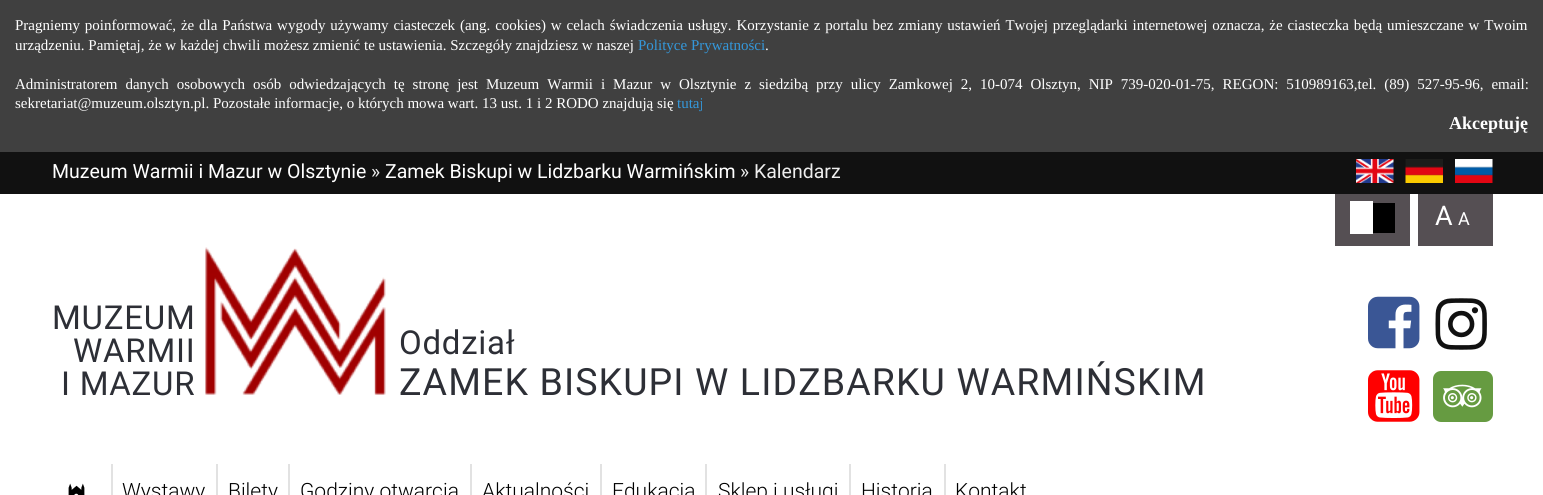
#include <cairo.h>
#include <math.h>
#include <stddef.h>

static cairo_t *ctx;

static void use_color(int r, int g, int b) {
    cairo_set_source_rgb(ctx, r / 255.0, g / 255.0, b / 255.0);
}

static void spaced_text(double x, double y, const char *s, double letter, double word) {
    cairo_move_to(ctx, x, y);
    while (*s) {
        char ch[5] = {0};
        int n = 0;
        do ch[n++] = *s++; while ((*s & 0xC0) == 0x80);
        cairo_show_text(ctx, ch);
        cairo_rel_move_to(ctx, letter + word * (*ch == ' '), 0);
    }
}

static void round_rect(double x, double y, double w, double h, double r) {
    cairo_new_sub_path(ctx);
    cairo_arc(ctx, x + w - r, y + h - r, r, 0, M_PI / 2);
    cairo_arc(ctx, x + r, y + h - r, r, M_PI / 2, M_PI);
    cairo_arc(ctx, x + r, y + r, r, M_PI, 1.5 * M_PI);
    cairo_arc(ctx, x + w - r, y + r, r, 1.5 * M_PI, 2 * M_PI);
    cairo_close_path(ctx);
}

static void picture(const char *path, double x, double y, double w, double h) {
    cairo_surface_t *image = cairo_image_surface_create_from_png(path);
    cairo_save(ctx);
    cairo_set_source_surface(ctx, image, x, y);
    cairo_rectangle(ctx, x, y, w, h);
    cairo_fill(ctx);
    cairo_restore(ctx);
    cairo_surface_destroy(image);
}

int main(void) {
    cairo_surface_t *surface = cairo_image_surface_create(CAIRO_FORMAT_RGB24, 1543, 495);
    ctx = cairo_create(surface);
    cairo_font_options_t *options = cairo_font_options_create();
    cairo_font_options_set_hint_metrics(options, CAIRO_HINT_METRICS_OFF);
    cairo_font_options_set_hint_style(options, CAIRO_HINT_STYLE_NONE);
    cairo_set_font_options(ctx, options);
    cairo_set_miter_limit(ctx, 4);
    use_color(255, 255, 255);
    cairo_paint(ctx);
    use_color(64, 64, 64);
    cairo_rectangle(ctx, 0, 0, 1543, 152);
    cairo_fill(ctx);
    cairo_select_font_face(ctx, "Liberation Serif", CAIRO_FONT_SLANT_NORMAL, CAIRO_FONT_WEIGHT_NORMAL);
    cairo_set_font_size(ctx, 15);
    use_color(255, 255, 255);
    spaced_text(15, 30, "Pragniemy poinformować, że dla Państwa wygody używamy ciasteczek (ang. cookies) w celach świadczenia usługy. Korzystanie z portalu bez zmiany ustawień Twojej przeglądarki internetowej oznacza, że ciasteczka będą umieszczane w Twoim", 0, 1.1);
    cairo_move_to(ctx, 15, 50);
    cairo_show_text(ctx, "urządzeniu. Pamiętaj, że w każdej chwili możesz zmienić te ustawienia. Szczegóły znajdziesz w naszej");
    use_color(52, 152, 219);
    cairo_move_to(ctx, 638, 50);
    cairo_show_text(ctx, "Polityce Prywatności");
    use_color(255, 255, 255);
    cairo_move_to(ctx, 765, 50);
    cairo_show_text(ctx, ".");
    spaced_text(15, 89, "Administratorem danych osobowych osób odwiedzających tę stronę jest Muzeum Warmii i Mazur w Olsztynie z siedzibą przy ulicy Zamkowej 2, 10-074 Olsztyn, NIP 739-020-01-75, REGON: 510989163,tel. (89) 527-95-96, email:", 0, 4.2);
    cairo_move_to(ctx, 15, 108);
    cairo_show_text(ctx, "sekretariat@muzeum.olsztyn.pl. Pozostałe informacje, o których mowa wart. 13 ust. 1 i 2 RODO znajdują się");
    use_color(52, 152, 219);
    cairo_move_to(ctx, 677, 108);
    cairo_show_text(ctx, "tutaj");
    cairo_select_font_face(ctx, "Liberation Serif", CAIRO_FONT_SLANT_NORMAL, CAIRO_FONT_WEIGHT_BOLD);
    cairo_set_font_size(ctx, 18);
    use_color(255, 255, 255);
    cairo_move_to(ctx, 1449, 129);
    cairo_show_text(ctx, "Akceptuję");
    use_color(17, 17, 17);
    cairo_rectangle(ctx, 0, 152, 1543, 42);
    cairo_fill(ctx);
    cairo_select_font_face(ctx, "Roboto", CAIRO_FONT_SLANT_NORMAL, CAIRO_FONT_WEIGHT_NORMAL);
    cairo_set_font_size(ctx, 19.5);
    use_color(255, 255, 255);
    cairo_move_to(ctx, 52, 178);
    cairo_show_text(ctx, "Muzeum Warmii i Mazur w Olsztynie");
    use_color(238, 238, 238);
    cairo_move_to(ctx, 371, 178);
    cairo_show_text(ctx, "»");
    use_color(255, 255, 255);
    cairo_move_to(ctx, 385, 178);
    cairo_show_text(ctx, "Zamek Biskupi w Lidzbarku Warmińskim");
    use_color(238, 238, 238);
    cairo_move_to(ctx, 740, 178);
    cairo_show_text(ctx, "» Kalendarz");
    picture("img1.png", 1356, 159, 38, 24);
    picture("img2.png", 1405, 159, 38, 24);
    picture("img3.png", 1455, 159, 38, 24);
    use_color(85, 79, 83);
    cairo_rectangle(ctx, 1335, 194, 75, 52);
    cairo_fill(ctx);
    use_color(255, 255, 255);
    cairo_rectangle(ctx, 1350, 201, 23, 33);
    cairo_fill(ctx);
    use_color(0, 0, 0);
    cairo_rectangle(ctx, 1373, 203, 22, 30);
    cairo_fill(ctx);
    use_color(85, 79, 83);
    cairo_rectangle(ctx, 1418, 194, 75, 52);
    cairo_fill(ctx);
    cairo_set_font_size(ctx, 27);
    use_color(255, 255, 255);
    cairo_move_to(ctx, 1435, 225);
    cairo_show_text(ctx, "A");
    cairo_set_font_size(ctx, 18);
    cairo_move_to(ctx, 1458, 225);
    cairo_show_text(ctx, "A");
    cairo_set_font_size(ctx, 33);
    use_color(45, 47, 54);
    spaced_text(52, 329, "MUZEUM", 0.75, 0);
    spaced_text(73, 362, "WARMII", 0.75, 0);
    spaced_text(61, 395, "I MAZUR", 0.75, 0);
    picture("img4.png", 205, 247, 181, 148);
    spaced_text(399, 354, "Oddział", 0.75, 0);
    cairo_set_font_size(ctx, 37.5);
    spaced_text(399, 395, "ZAMEK BISKUPI W LIDZBARKU WARMIŃSKIM", 1.1, 0);
    picture("img5.png", 1368, 296, 52, 53);
    picture("img6.png", 1435, 298, 52, 52);
    picture("img7.png", 1368, 370, 52, 52);
    use_color(102, 155, 65);
    round_rect(1433, 371, 60, 51, 8);
    cairo_fill(ctx);
    picture("img8.png", 1443, 384, 39, 24);
    picture("img9.png", 68, 483, 17, 12);
    use_color(226, 226, 226);
    cairo_rectangle(ctx, 111, 464, 2, 31);
    cairo_fill(ctx);
    cairo_select_font_face(ctx, "Roboto Light", CAIRO_FONT_SLANT_NORMAL, CAIRO_FONT_WEIGHT_NORMAL);
    cairo_set_font_size(ctx, 21);
    use_color(0, 0, 0);
    cairo_move_to(ctx, 122, 498);
    cairo_show_text(ctx, "Wystawy");
    use_color(226, 226, 226);
    cairo_rectangle(ctx, 216, 464, 2, 31);
    cairo_fill(ctx);
    use_color(0, 0, 0);
    cairo_move_to(ctx, 228, 498);
    cairo_show_text(ctx, "Bilety");
    use_color(226, 226, 226);
    cairo_rectangle(ctx, 288, 464, 2, 31);
    cairo_fill(ctx);
    use_color(0, 0, 0);
    cairo_move_to(ctx, 300, 498);
    cairo_show_text(ctx, "Godziny otwarcia");
    use_color(226, 226, 226);
    cairo_rectangle(ctx, 470, 464, 2, 31);
    cairo_fill(ctx);
    use_color(0, 0, 0);
    cairo_move_to(ctx, 482, 498);
    cairo_show_text(ctx, "Aktualności");
    use_color(226, 226, 226);
    cairo_rectangle(ctx, 600, 464, 2, 31);
    cairo_fill(ctx);
    use_color(0, 0, 0);
    cairo_move_to(ctx, 612, 498);
    cairo_show_text(ctx, "Edukacja");
    use_color(226, 226, 226);
    cairo_rectangle(ctx, 705, 464, 2, 31);
    cairo_fill(ctx);
    use_color(0, 0, 0);
    cairo_move_to(ctx, 718, 498);
    cairo_show_text(ctx, "Sklep i usługi");
    use_color(226, 226, 226);
    cairo_rectangle(ctx, 849, 464, 2, 31);
    cairo_fill(ctx);
    use_color(0, 0, 0);
    cairo_move_to(ctx, 861, 498);
    cairo_show_text(ctx, "Historia");
    use_color(226, 226, 226);
    cairo_rectangle(ctx, 944, 464, 2, 31);
    cairo_fill(ctx);
    use_color(0, 0, 0);
    cairo_move_to(ctx, 955, 498);
    cairo_show_text(ctx, "Kontakt");
    cairo_surface_write_to_png(surface, "result.png");
    cairo_font_options_destroy(options);
    cairo_destroy(ctx);
    cairo_surface_destroy(surface);
    return 0;
}
